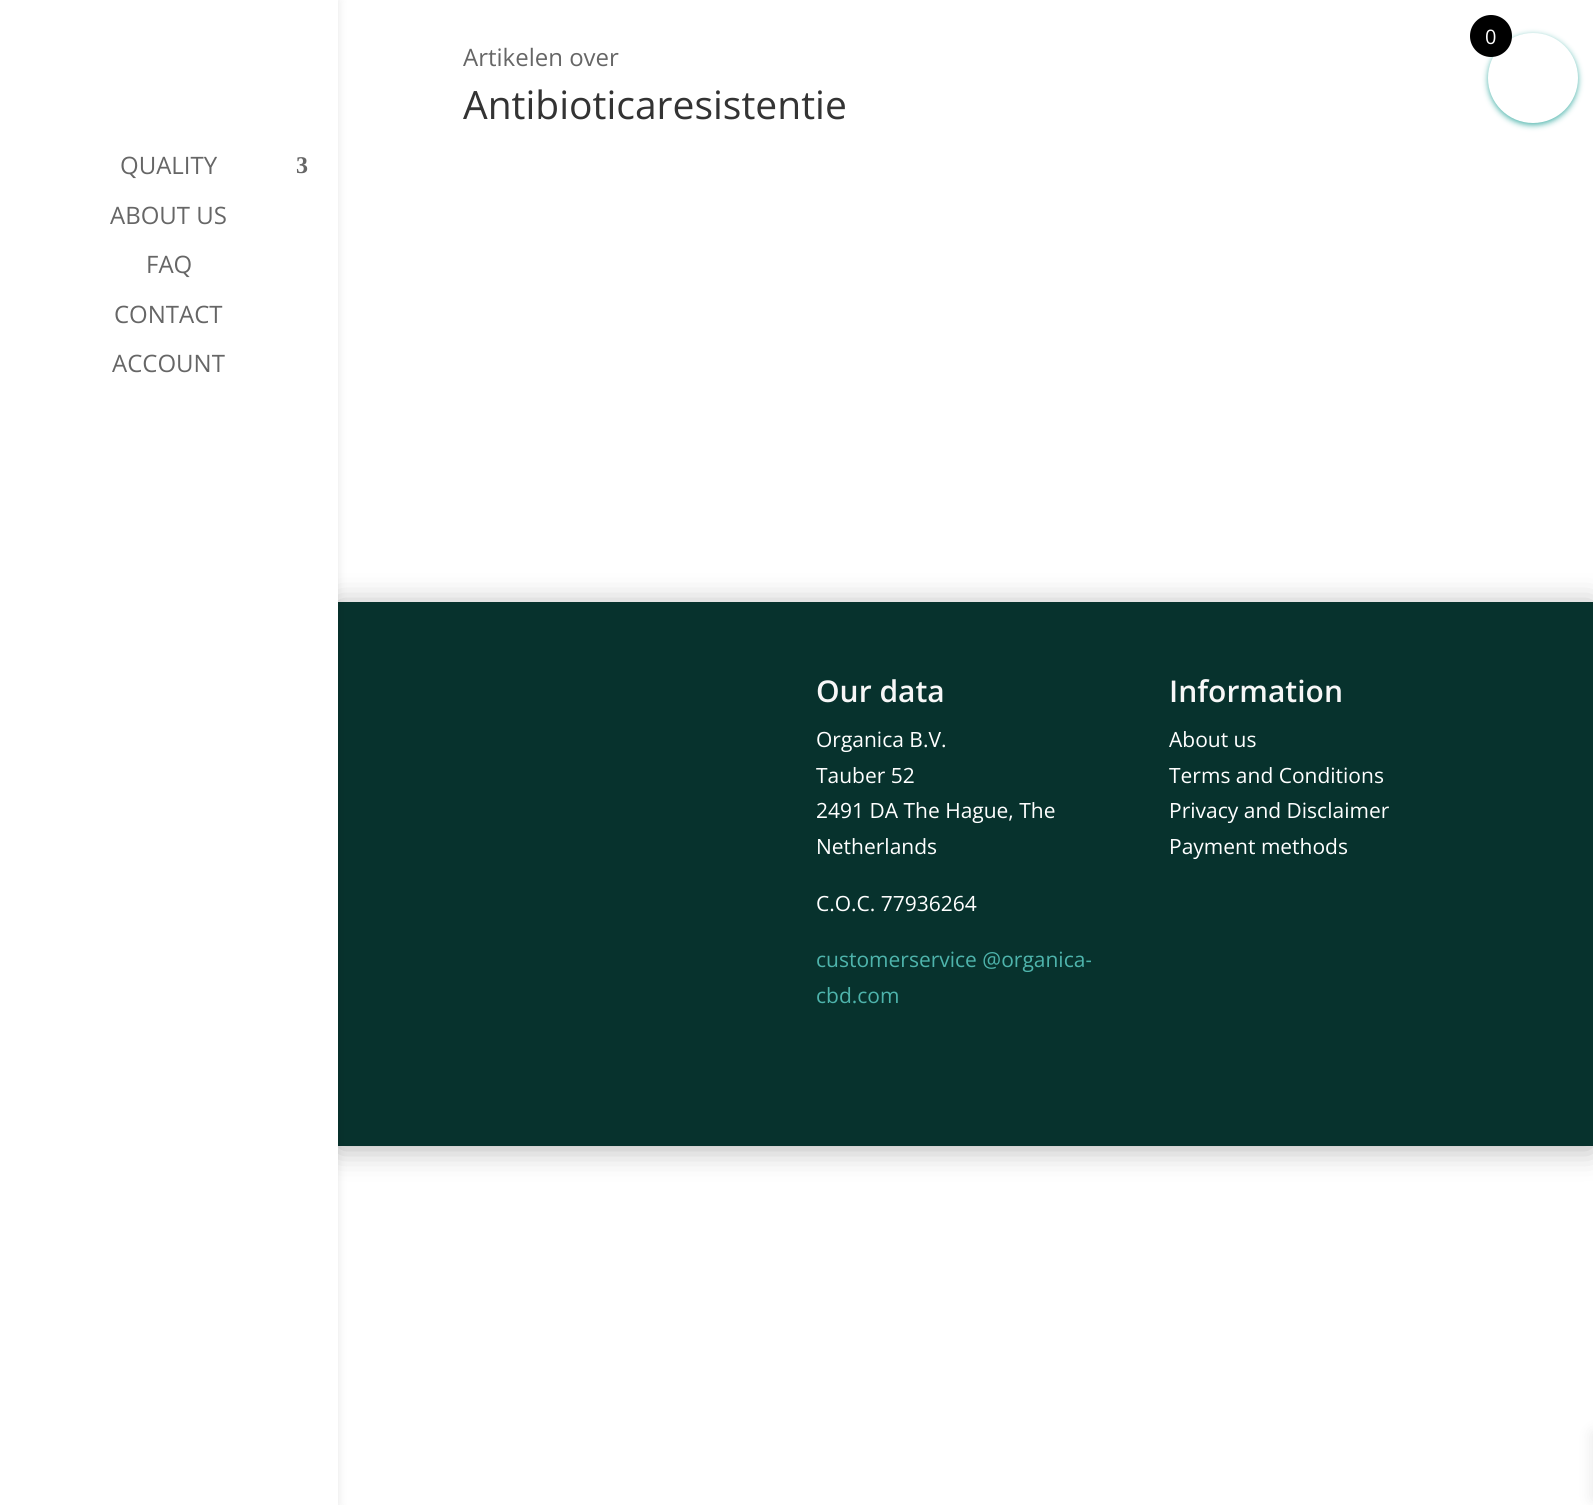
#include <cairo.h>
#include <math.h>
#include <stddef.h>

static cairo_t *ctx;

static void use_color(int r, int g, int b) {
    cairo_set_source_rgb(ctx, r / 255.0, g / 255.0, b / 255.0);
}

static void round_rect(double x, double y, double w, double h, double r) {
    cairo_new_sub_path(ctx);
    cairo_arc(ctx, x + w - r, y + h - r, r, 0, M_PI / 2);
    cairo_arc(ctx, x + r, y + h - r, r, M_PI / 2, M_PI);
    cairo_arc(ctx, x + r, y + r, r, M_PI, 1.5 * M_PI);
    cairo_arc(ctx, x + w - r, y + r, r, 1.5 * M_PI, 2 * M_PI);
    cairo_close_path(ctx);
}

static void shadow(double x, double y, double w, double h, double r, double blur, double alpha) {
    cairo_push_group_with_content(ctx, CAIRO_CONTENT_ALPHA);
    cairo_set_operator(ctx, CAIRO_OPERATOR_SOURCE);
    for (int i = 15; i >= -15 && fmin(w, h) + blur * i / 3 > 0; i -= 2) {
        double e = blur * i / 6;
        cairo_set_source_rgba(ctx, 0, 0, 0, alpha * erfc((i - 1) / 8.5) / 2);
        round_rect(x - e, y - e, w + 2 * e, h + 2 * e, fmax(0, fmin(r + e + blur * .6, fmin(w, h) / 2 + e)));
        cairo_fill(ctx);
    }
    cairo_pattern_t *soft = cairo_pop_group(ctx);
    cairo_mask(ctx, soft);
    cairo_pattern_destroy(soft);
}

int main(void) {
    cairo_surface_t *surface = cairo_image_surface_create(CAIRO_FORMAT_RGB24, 1593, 1505);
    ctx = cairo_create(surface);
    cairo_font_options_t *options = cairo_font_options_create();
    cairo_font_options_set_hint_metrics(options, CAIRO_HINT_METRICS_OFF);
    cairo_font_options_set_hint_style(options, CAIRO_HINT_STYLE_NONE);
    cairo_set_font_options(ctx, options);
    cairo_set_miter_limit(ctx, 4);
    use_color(255, 255, 255);
    cairo_paint(ctx);
    use_color(78, 180, 172);
    shadow(1488, 35, 90, 90, 45, 3, 1);
    use_color(255, 255, 255);
    cairo_arc(ctx, 1533, 78, 45, 0, 2 * M_PI);
    cairo_fill(ctx);
    use_color(0, 0, 0);
    cairo_arc(ctx, 1491, 36, 21, 0, 2 * M_PI);
    cairo_fill(ctx);
    cairo_select_font_face(ctx, "Open Sans", CAIRO_FONT_SLANT_NORMAL, CAIRO_FONT_WEIGHT_NORMAL);
    cairo_set_font_size(ctx, 20);
    use_color(255, 255, 255);
    cairo_move_to(ctx, 1485, 44);
    cairo_show_text(ctx, "0");
    use_color(0, 0, 0);
    shadow(1593, 1433, 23, 66, 0, 7.5, 0.1);
    shadow(338, 605, 1255, 544, 0, 15, 0.3);
    use_color(7, 50, 45);
    cairo_rectangle(ctx, 338, 602, 1255, 544);
    cairo_fill(ctx);
    use_color(0, 0, 0);
    shadow(0, 0, 338, 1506, 0, 5, 0.1);
    use_color(255, 255, 255);
    cairo_rectangle(ctx, 0, 0, 338, 1505);
    cairo_fill(ctx);
    cairo_set_font_size(ctx, 24);
    use_color(102, 102, 102);
    cairo_move_to(ctx, 120, 174);
    cairo_show_text(ctx, "QUALITY");
    cairo_select_font_face(ctx, "Liberation Serif", CAIRO_FONT_SLANT_NORMAL, CAIRO_FONT_WEIGHT_BOLD);
    cairo_move_to(ctx, 296, 173);
    cairo_show_text(ctx, "3");
    cairo_select_font_face(ctx, "Open Sans", CAIRO_FONT_SLANT_NORMAL, CAIRO_FONT_WEIGHT_NORMAL);
    cairo_move_to(ctx, 110, 224);
    cairo_show_text(ctx, "ABOUT US");
    cairo_move_to(ctx, 146, 273);
    cairo_show_text(ctx, "FAQ");
    cairo_move_to(ctx, 114, 323);
    cairo_show_text(ctx, "CONTACT");
    cairo_move_to(ctx, 112, 372);
    cairo_show_text(ctx, "ACCOUNT");
    cairo_move_to(ctx, 463, 66);
    cairo_show_text(ctx, "Artikelen over");
    cairo_set_font_size(ctx, 39);
    use_color(51, 51, 51);
    cairo_move_to(ctx, 463, 119);
    cairo_show_text(ctx, "Antibioticaresistentie");
    cairo_select_font_face(ctx, "Open Sans SemiBold", CAIRO_FONT_SLANT_NORMAL, CAIRO_FONT_WEIGHT_NORMAL);
    cairo_set_font_size(ctx, 30);
    use_color(247, 247, 247);
    cairo_move_to(ctx, 816, 702);
    cairo_show_text(ctx, "Our data");
    cairo_select_font_face(ctx, "Open Sans", CAIRO_FONT_SLANT_NORMAL, CAIRO_FONT_WEIGHT_NORMAL);
    cairo_set_font_size(ctx, 21);
    use_color(255, 255, 255);
    cairo_move_to(ctx, 816, 747);
    cairo_show_text(ctx, "Organica B.V.");
    cairo_move_to(ctx, 816, 783);
    cairo_show_text(ctx, "Tauber 52");
    cairo_move_to(ctx, 816, 818);
    cairo_show_text(ctx, "2491 DA The Hague, The");
    cairo_move_to(ctx, 816, 854);
    cairo_show_text(ctx, "Netherlands");
    cairo_move_to(ctx, 816, 911);
    cairo_show_text(ctx, "C.O.C. 77936264");
    use_color(78, 180, 172);
    cairo_move_to(ctx, 816, 967);
    cairo_show_text(ctx, "customerservice @organica-");
    cairo_move_to(ctx, 816, 1003);
    cairo_show_text(ctx, "cbd.com");
    cairo_select_font_face(ctx, "Open Sans SemiBold", CAIRO_FONT_SLANT_NORMAL, CAIRO_FONT_WEIGHT_NORMAL);
    cairo_set_font_size(ctx, 30);
    use_color(247, 247, 247);
    cairo_move_to(ctx, 1169, 702);
    cairo_show_text(ctx, "Information");
    cairo_select_font_face(ctx, "Open Sans", CAIRO_FONT_SLANT_NORMAL, CAIRO_FONT_WEIGHT_NORMAL);
    cairo_set_font_size(ctx, 21);
    use_color(255, 255, 255);
    cairo_move_to(ctx, 1169, 747);
    cairo_show_text(ctx, "About us");
    cairo_move_to(ctx, 1169, 783);
    cairo_show_text(ctx, "Terms and Conditions");
    cairo_move_to(ctx, 1169, 818);
    cairo_show_text(ctx, "Privacy and Disclaimer");
    cairo_move_to(ctx, 1169, 854);
    cairo_show_text(ctx, "Payment methods");
    cairo_surface_write_to_png(surface, "result.png");
    cairo_font_options_destroy(options);
    cairo_destroy(ctx);
    cairo_surface_destroy(surface);
    return 0;
}
